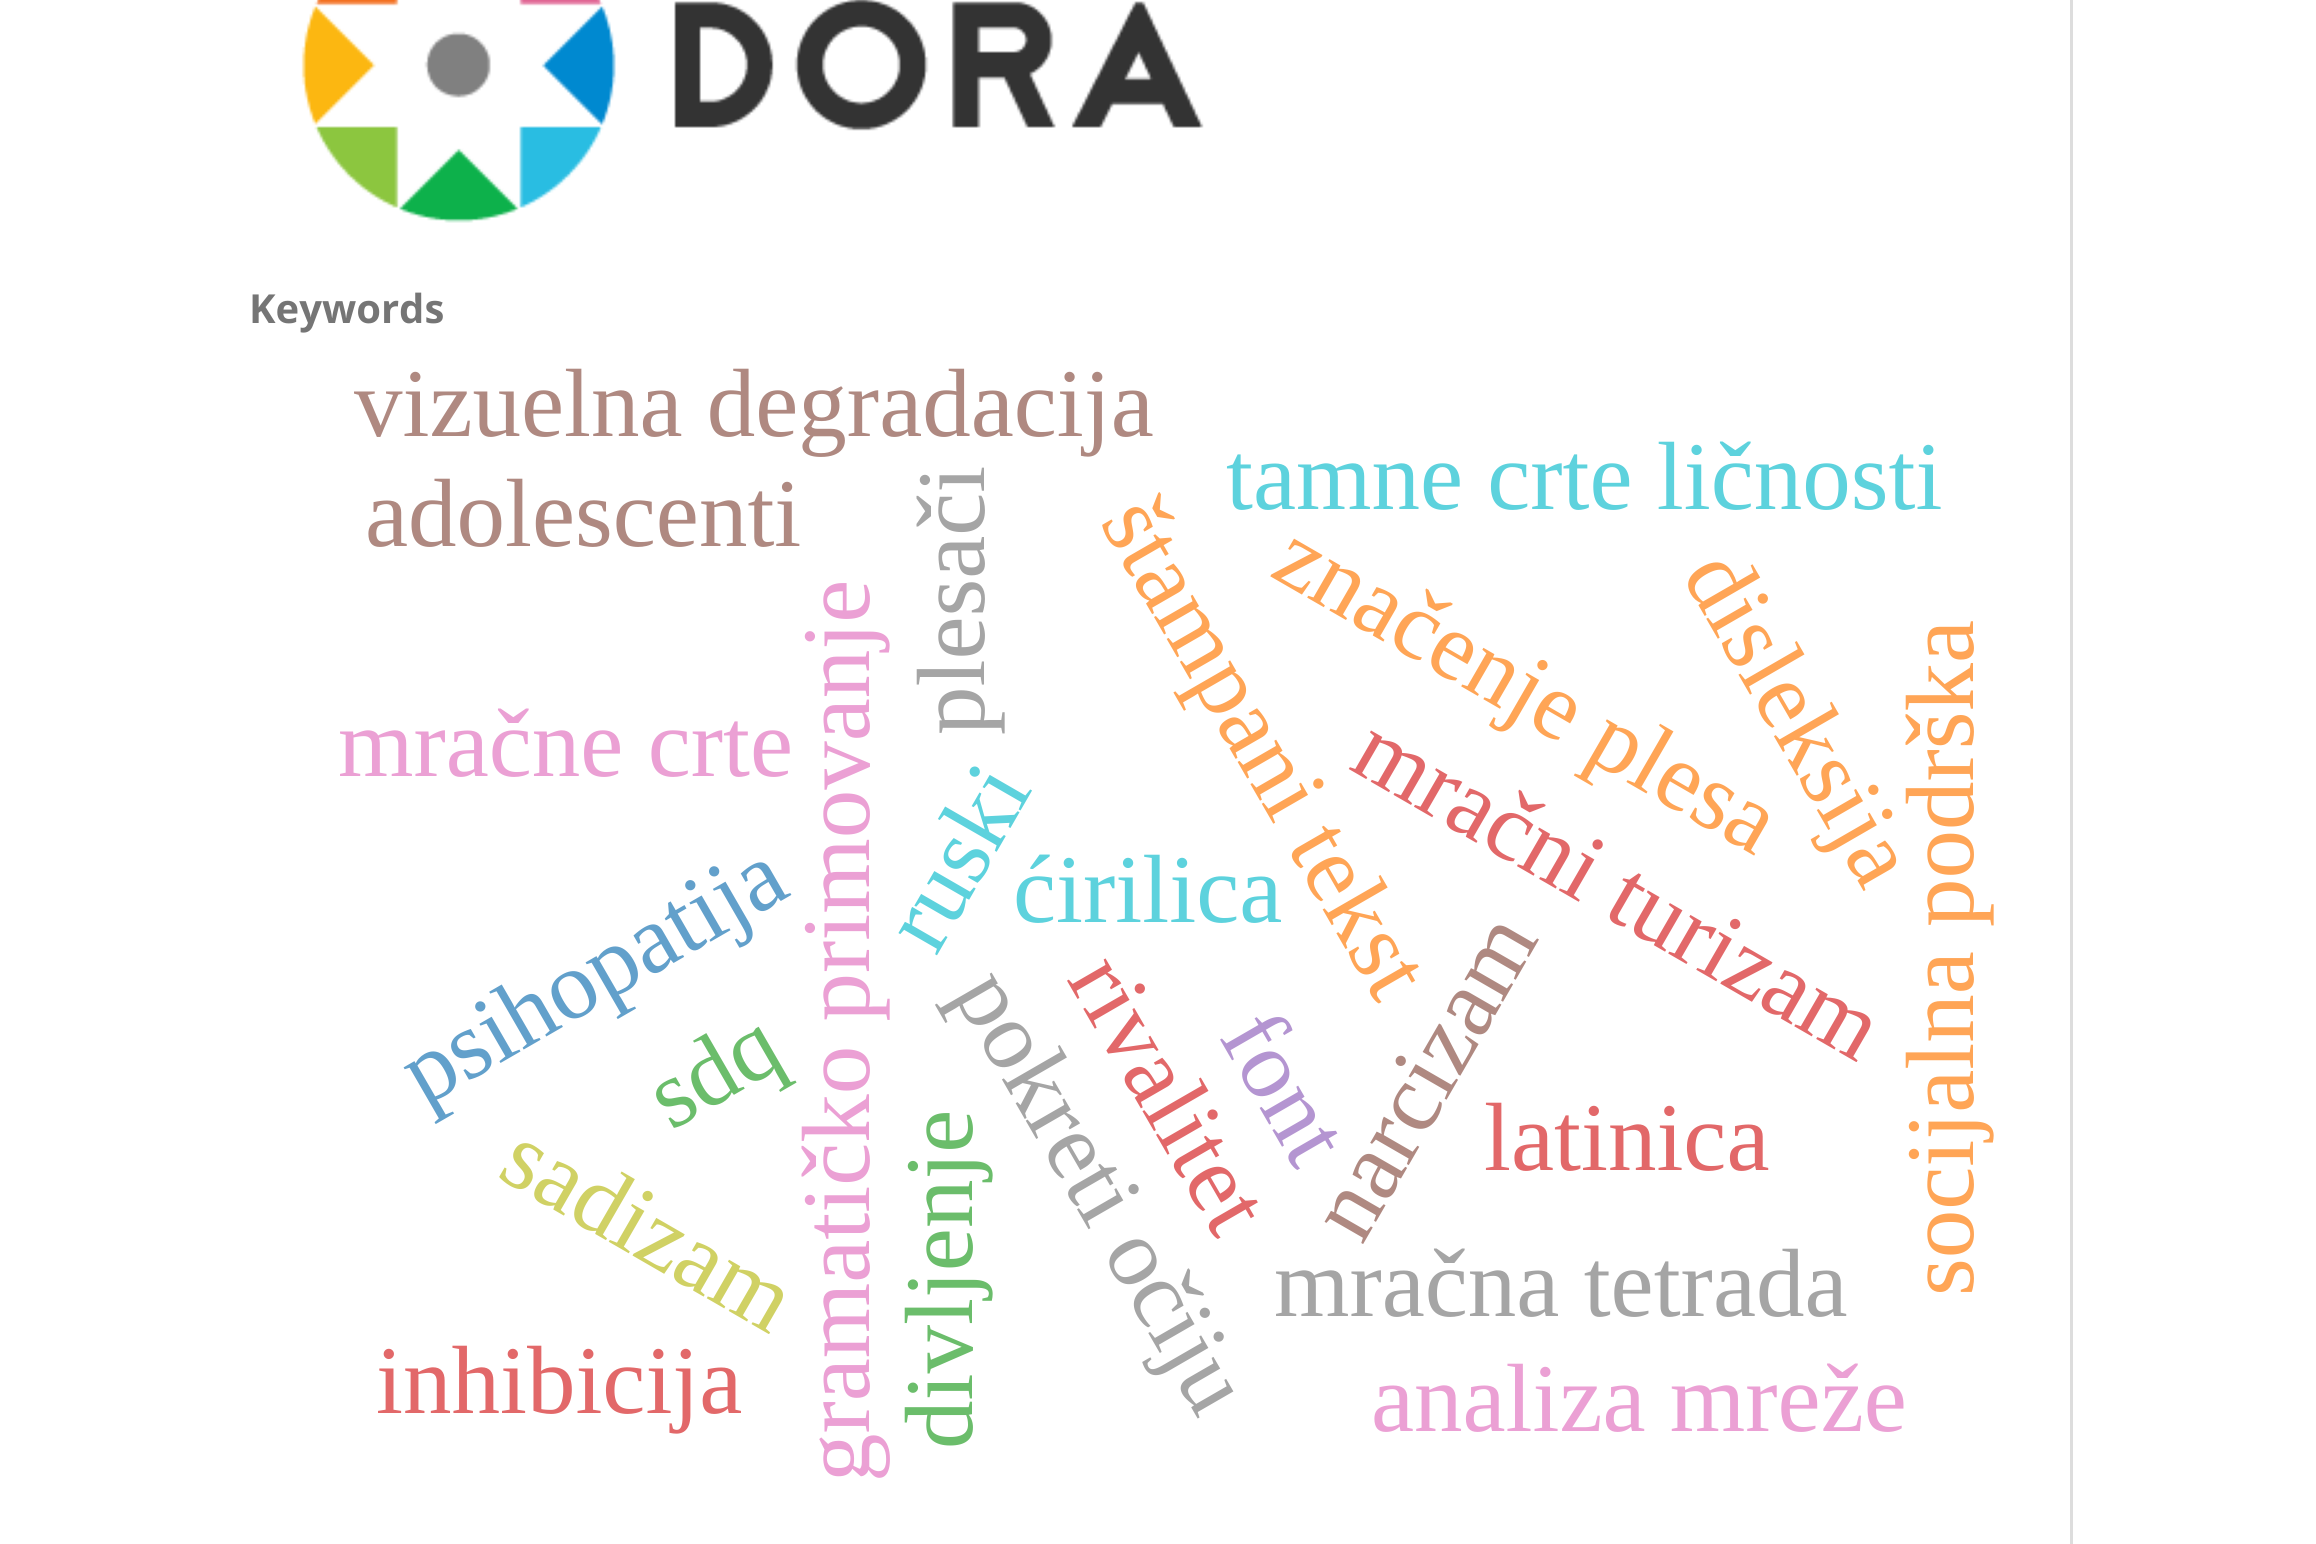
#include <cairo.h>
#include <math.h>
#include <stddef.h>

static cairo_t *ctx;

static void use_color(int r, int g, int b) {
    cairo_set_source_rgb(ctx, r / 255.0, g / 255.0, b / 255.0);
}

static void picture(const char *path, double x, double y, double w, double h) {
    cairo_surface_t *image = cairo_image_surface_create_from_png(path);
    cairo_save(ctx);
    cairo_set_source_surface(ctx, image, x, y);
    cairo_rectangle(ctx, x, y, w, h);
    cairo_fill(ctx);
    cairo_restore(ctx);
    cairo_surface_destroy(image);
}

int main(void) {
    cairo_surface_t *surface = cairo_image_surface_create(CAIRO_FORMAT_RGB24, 2316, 1544);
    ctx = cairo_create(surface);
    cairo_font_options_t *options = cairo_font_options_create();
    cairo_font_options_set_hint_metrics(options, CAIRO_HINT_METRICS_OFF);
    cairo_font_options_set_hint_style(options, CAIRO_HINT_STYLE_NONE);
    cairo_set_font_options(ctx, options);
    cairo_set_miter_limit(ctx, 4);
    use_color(255, 255, 255);
    cairo_paint(ctx);
    picture("img1.png", 301, 0, 903, 223);
    cairo_select_font_face(ctx, "Noto Sans", CAIRO_FONT_SLANT_NORMAL, CAIRO_FONT_WEIGHT_BOLD);
    cairo_set_font_size(ctx, 40);
    use_color(117, 117, 117);
    cairo_move_to(ctx, 249, 323);
    cairo_show_text(ctx, "Keywords");
    cairo_select_font_face(ctx, "Liberation Serif", CAIRO_FONT_SLANT_NORMAL, CAIRO_FONT_WEIGHT_NORMAL);
    cairo_set_font_size(ctx, 97);
    use_color(175, 137, 129);
    cairo_move_to(ctx, 354, 436);
    cairo_show_text(ctx, "vizuelna degradacija");
    cairo_move_to(ctx, 365, 546);
    cairo_show_text(ctx, "adolescenti");
    use_color(165, 165, 165);
    cairo_save(ctx);
    cairo_translate(ctx, 984, 735);
    cairo_rotate(ctx, -90 * M_PI / 180);
    cairo_move_to(ctx, 0, 0);
    cairo_show_text(ctx, "plesači");
    cairo_restore(ctx);
    use_color(93, 210, 221);
    cairo_move_to(ctx, 1226, 509);
    cairo_show_text(ctx, "tamne crte ličnosti");
    use_color(235, 160, 212);
    cairo_move_to(ctx, 338, 776);
    cairo_show_text(ctx, "mračne crte");
    cairo_save(ctx);
    cairo_translate(ctx, 869, 1482);
    cairo_rotate(ctx, -90 * M_PI / 180);
    cairo_move_to(ctx, 0, 0);
    cairo_show_text(ctx, "gramatičko primovanje");
    cairo_restore(ctx);
    use_color(93, 210, 221);
    cairo_move_to(ctx, 1013, 922);
    cairo_show_text(ctx, "ćirilica");
    use_color(255, 165, 86);
    cairo_save(ctx);
    cairo_translate(ctx, 1099, 522);
    cairo_rotate(ctx, 60 * M_PI / 180);
    cairo_move_to(ctx, 0, 0);
    cairo_show_text(ctx, "štampani tekst");
    cairo_restore(ctx);
    cairo_save(ctx);
    cairo_translate(ctx, 1268, 575);
    cairo_rotate(ctx, 30 * M_PI / 180);
    cairo_move_to(ctx, 0, 0);
    cairo_show_text(ctx, "značenje plesa");
    cairo_restore(ctx);
    cairo_save(ctx);
    cairo_translate(ctx, 1681, 575);
    cairo_rotate(ctx, 60 * M_PI / 180);
    cairo_move_to(ctx, 0, 0);
    cairo_show_text(ctx, "disleksija");
    cairo_restore(ctx);
    cairo_save(ctx);
    cairo_translate(ctx, 1973, 1296);
    cairo_rotate(ctx, -90 * M_PI / 180);
    cairo_move_to(ctx, 0, 0);
    cairo_show_text(ctx, "socijalna podrška");
    cairo_restore(ctx);
    use_color(98, 160, 203);
    cairo_save(ctx);
    cairo_translate(ctx, 424, 1107);
    cairo_rotate(ctx, -30 * M_PI / 180);
    cairo_move_to(ctx, 0, 0);
    cairo_show_text(ctx, "psihopatija");
    cairo_restore(ctx);
    use_color(93, 210, 221);
    cairo_save(ctx);
    cairo_translate(ctx, 936, 957);
    cairo_rotate(ctx, -60 * M_PI / 180);
    cairo_move_to(ctx, 0, 0);
    cairo_show_text(ctx, "ruski");
    cairo_restore(ctx);
    use_color(175, 137, 129);
    cairo_save(ctx);
    cairo_translate(ctx, 1362, 1246);
    cairo_rotate(ctx, -60 * M_PI / 180);
    cairo_move_to(ctx, 0, 0);
    cairo_show_text(ctx, "narcizam");
    cairo_restore(ctx);
    use_color(226, 104, 105);
    cairo_save(ctx);
    cairo_translate(ctx, 1347, 768);
    cairo_rotate(ctx, 30 * M_PI / 180);
    cairo_move_to(ctx, 0, 0);
    cairo_show_text(ctx, "mračni turizam");
    cairo_restore(ctx);
    use_color(165, 165, 165);
    cairo_save(ctx);
    cairo_translate(ctx, 952, 993);
    cairo_rotate(ctx, 60 * M_PI / 180);
    cairo_move_to(ctx, 0, 0);
    cairo_show_text(ctx, "pokreti očiju");
    cairo_restore(ctx);
    use_color(226, 104, 105);
    cairo_save(ctx);
    cairo_translate(ctx, 1066, 979);
    cairo_rotate(ctx, 60 * M_PI / 180);
    cairo_move_to(ctx, 0, 0);
    cairo_show_text(ctx, "rivalitet");
    cairo_restore(ctx);
    use_color(107, 189, 107);
    cairo_save(ctx);
    cairo_translate(ctx, 671, 1131);
    cairo_rotate(ctx, -30 * M_PI / 180);
    cairo_move_to(ctx, 0, 0);
    cairo_show_text(ctx, "sdq");
    cairo_restore(ctx);
    use_color(180, 149, 209);
    cairo_save(ctx);
    cairo_translate(ctx, 1218, 1036);
    cairo_rotate(ctx, 60 * M_PI / 180);
    cairo_move_to(ctx, 0, 0);
    cairo_show_text(ctx, "font");
    cairo_restore(ctx);
    use_color(208, 209, 100);
    cairo_save(ctx);
    cairo_translate(ctx, 495, 1176);
    cairo_rotate(ctx, 30 * M_PI / 180);
    cairo_move_to(ctx, 0, 0);
    cairo_show_text(ctx, "sadizam");
    cairo_restore(ctx);
    use_color(107, 189, 107);
    cairo_save(ctx);
    cairo_translate(ctx, 972, 1449);
    cairo_rotate(ctx, -90 * M_PI / 180);
    cairo_move_to(ctx, 0, 0);
    cairo_show_text(ctx, "divljenje");
    cairo_restore(ctx);
    use_color(226, 104, 105);
    cairo_move_to(ctx, 1484, 1170);
    cairo_show_text(ctx, "latinica");
    use_color(165, 165, 165);
    cairo_move_to(ctx, 1274, 1316);
    cairo_show_text(ctx, "mračna tetrada");
    use_color(226, 104, 105);
    cairo_move_to(ctx, 376, 1413);
    cairo_show_text(ctx, "inhibicija");
    use_color(235, 160, 212);
    cairo_move_to(ctx, 1371, 1431);
    cairo_show_text(ctx, "analiza mreže");
    use_color(221, 221, 221);
    cairo_rectangle(ctx, 2070, 0, 3, 1544);
    cairo_fill(ctx);
    cairo_surface_write_to_png(surface, "result.png");
    cairo_font_options_destroy(options);
    cairo_destroy(ctx);
    cairo_surface_destroy(surface);
    return 0;
}
